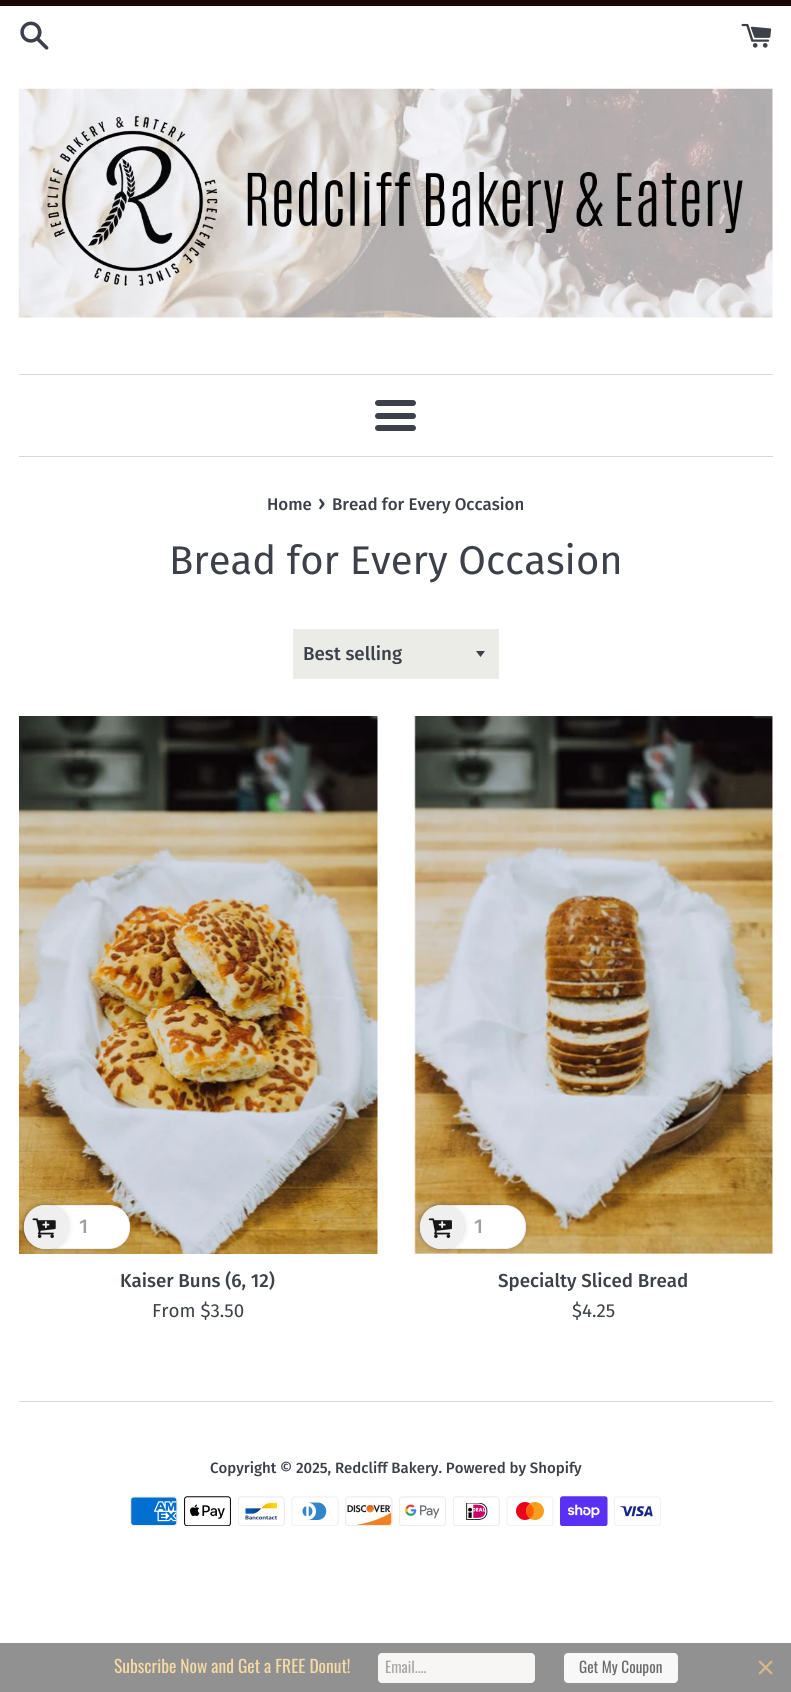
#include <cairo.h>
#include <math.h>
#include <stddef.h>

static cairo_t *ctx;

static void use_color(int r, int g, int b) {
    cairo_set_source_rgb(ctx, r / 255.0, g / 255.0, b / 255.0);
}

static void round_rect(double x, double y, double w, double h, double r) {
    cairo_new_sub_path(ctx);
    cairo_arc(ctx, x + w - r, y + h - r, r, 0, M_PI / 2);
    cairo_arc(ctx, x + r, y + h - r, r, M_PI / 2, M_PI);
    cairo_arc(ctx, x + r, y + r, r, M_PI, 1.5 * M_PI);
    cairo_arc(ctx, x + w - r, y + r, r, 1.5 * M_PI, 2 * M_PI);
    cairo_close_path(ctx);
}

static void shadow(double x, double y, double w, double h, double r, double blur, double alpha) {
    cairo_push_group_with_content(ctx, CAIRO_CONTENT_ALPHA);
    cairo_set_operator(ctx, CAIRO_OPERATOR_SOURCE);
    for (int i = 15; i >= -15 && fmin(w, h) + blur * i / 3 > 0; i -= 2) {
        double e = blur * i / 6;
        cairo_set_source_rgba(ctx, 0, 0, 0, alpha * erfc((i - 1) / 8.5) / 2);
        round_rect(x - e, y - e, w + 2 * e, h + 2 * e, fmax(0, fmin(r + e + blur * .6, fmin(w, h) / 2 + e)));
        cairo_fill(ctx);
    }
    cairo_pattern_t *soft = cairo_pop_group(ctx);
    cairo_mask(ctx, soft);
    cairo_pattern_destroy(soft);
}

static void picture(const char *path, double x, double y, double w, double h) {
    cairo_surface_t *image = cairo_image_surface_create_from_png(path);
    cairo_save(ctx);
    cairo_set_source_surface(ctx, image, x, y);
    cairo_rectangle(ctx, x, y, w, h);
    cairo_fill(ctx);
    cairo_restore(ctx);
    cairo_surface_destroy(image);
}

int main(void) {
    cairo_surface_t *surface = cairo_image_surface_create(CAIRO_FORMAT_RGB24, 791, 1692);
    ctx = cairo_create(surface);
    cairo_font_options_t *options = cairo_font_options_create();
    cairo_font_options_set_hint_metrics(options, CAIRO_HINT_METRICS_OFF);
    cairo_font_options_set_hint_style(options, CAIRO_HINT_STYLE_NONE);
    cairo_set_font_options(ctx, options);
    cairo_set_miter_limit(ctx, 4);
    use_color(255, 255, 255);
    cairo_paint(ctx);
    use_color(25, 7, 6);
    cairo_rectangle(ctx, 0, 0, 791, 6);
    cairo_fill(ctx);
    picture("img1.png", 20, 21, 29, 29);
    picture("img2.png", 741, 23, 31, 25);
    picture("img3.png", 18, 88, 755, 230);
    use_color(215, 216, 210);
    cairo_rectangle(ctx, 19, 374, 754, 1);
    cairo_fill(ctx);
    use_color(60, 64, 73);
    round_rect(375, 400, 41, 6, 3);
    cairo_fill(ctx);
    round_rect(375, 413, 41, 6, 3);
    cairo_fill(ctx);
    round_rect(375, 425, 41, 6, 3);
    cairo_fill(ctx);
    use_color(215, 216, 210);
    cairo_rectangle(ctx, 19, 456, 754, 1);
    cairo_fill(ctx);
    cairo_select_font_face(ctx, "Fira Sans Medium", CAIRO_FONT_SLANT_NORMAL, CAIRO_FONT_WEIGHT_NORMAL);
    cairo_set_font_size(ctx, 16.9);
    use_color(60, 64, 73);
    cairo_move_to(ctx, 267, 510);
    cairo_show_text(ctx, "Home");
    cairo_set_font_size(ctx, 21);
    cairo_move_to(ctx, 318, 510);
    cairo_show_text(ctx, "›");
    cairo_set_font_size(ctx, 16.9);
    cairo_move_to(ctx, 332, 510);
    cairo_show_text(ctx, "Bread for Every Occasion");
    cairo_select_font_face(ctx, "Fira Sans", CAIRO_FONT_SLANT_NORMAL, CAIRO_FONT_WEIGHT_NORMAL);
    cairo_set_font_size(ctx, 40);
    cairo_move_to(ctx, 169, 574);
    cairo_show_text(ctx, "Bread for Every Occasion");
    use_color(235, 235, 232);
    cairo_rectangle(ctx, 293, 629, 206, 50);
    cairo_fill(ctx);
    use_color(60, 64, 73);
    cairo_new_path(ctx);
    cairo_move_to(ctx, 476, 651);
    cairo_line_to(ctx, 480.5, 657);
    cairo_line_to(ctx, 485, 651);
    cairo_close_path(ctx);
    cairo_fill(ctx);
    cairo_select_font_face(ctx, "Fira Sans Medium", CAIRO_FONT_SLANT_NORMAL, CAIRO_FONT_WEIGHT_NORMAL);
    cairo_set_font_size(ctx, 18.75);
    cairo_move_to(ctx, 303, 660);
    cairo_show_text(ctx, "Best selling");
    picture("img4.png", 19, 716, 359, 538);
    use_color(0, 0, 0);
    shadow(24, 1205, 106, 44, 21, 2.5, 0.2);
    use_color(255, 255, 255);
    round_rect(24.5, 1205.5, 105, 43, 20.5);
    cairo_fill_preserve(ctx);
    use_color(238, 238, 238);
    cairo_set_line_width(ctx, 1);
    cairo_stroke(ctx);
    cairo_save(ctx);
    cairo_set_fill_rule(ctx, CAIRO_FILL_RULE_EVEN_ODD);
    cairo_new_path(ctx);
    cairo_move_to(ctx, 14, 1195);
    cairo_line_to(ctx, 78, 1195);
    cairo_line_to(ctx, 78, 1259);
    cairo_line_to(ctx, 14, 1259);
    cairo_close_path(ctx);
    cairo_move_to(ctx, 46, 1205);
    cairo_curve_to(ctx, 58, 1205, 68, 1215, 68, 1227);
    cairo_curve_to(ctx, 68, 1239, 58, 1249, 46, 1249);
    cairo_curve_to(ctx, 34, 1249, 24, 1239, 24, 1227);
    cairo_curve_to(ctx, 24, 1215, 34, 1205, 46, 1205);
    cairo_close_path(ctx);
    cairo_clip(ctx);
    use_color(0, 0, 0);
    shadow(24, 1205, 44, 44, 22, 3, 0.18);
    cairo_restore(ctx);
    cairo_set_source_rgba(ctx, 0.933, 0.933, 0.933, 0.9);
    cairo_arc(ctx, 46, 1227, 22, 0, 2 * M_PI);
    cairo_fill(ctx);
    picture("img5.png", 32, 1218, 24, 20);
    cairo_set_font_size(ctx, 20);
    use_color(160, 160, 160);
    cairo_move_to(ctx, 79, 1233);
    cairo_show_text(ctx, "1");
    cairo_set_font_size(ctx, 18.75);
    use_color(60, 64, 73);
    cairo_move_to(ctx, 120, 1287);
    cairo_show_text(ctx, "Kaiser Buns (6, 12)");
    cairo_select_font_face(ctx, "Fira Sans", CAIRO_FONT_SLANT_NORMAL, CAIRO_FONT_WEIGHT_NORMAL);
    cairo_move_to(ctx, 152, 1317);
    cairo_show_text(ctx, "From $3.50");
    picture("img6.png", 414, 716, 359, 538);
    use_color(0, 0, 0);
    shadow(420, 1205, 106, 44, 21, 2.5, 0.2);
    use_color(255, 255, 255);
    round_rect(420.5, 1205.5, 105, 43, 20.5);
    cairo_fill_preserve(ctx);
    use_color(238, 238, 238);
    cairo_stroke(ctx);
    cairo_save(ctx);
    cairo_set_fill_rule(ctx, CAIRO_FILL_RULE_EVEN_ODD);
    cairo_new_path(ctx);
    cairo_move_to(ctx, 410, 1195);
    cairo_line_to(ctx, 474, 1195);
    cairo_line_to(ctx, 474, 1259);
    cairo_line_to(ctx, 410, 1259);
    cairo_close_path(ctx);
    cairo_move_to(ctx, 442, 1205);
    cairo_curve_to(ctx, 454, 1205, 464, 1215, 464, 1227);
    cairo_curve_to(ctx, 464, 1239, 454, 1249, 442, 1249);
    cairo_curve_to(ctx, 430, 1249, 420, 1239, 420, 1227);
    cairo_curve_to(ctx, 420, 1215, 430, 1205, 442, 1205);
    cairo_close_path(ctx);
    cairo_clip(ctx);
    use_color(0, 0, 0);
    shadow(420, 1205, 44, 44, 22, 3, 0.18);
    cairo_restore(ctx);
    cairo_set_source_rgba(ctx, 0.933, 0.933, 0.933, 0.9);
    cairo_arc(ctx, 442, 1227, 22, 0, 2 * M_PI);
    cairo_fill(ctx);
    picture("img7.png", 428, 1218, 24, 20);
    cairo_select_font_face(ctx, "Fira Sans Medium", CAIRO_FONT_SLANT_NORMAL, CAIRO_FONT_WEIGHT_NORMAL);
    cairo_set_font_size(ctx, 20);
    use_color(160, 160, 160);
    cairo_move_to(ctx, 474, 1233);
    cairo_show_text(ctx, "1");
    cairo_set_font_size(ctx, 18.75);
    use_color(60, 64, 73);
    cairo_move_to(ctx, 498, 1287);
    cairo_show_text(ctx, "Specialty Sliced Bread");
    cairo_select_font_face(ctx, "Fira Sans", CAIRO_FONT_SLANT_NORMAL, CAIRO_FONT_WEIGHT_NORMAL);
    cairo_move_to(ctx, 572, 1317);
    cairo_show_text(ctx, "$4.25");
    use_color(215, 216, 210);
    cairo_rectangle(ctx, 19, 1401, 754, 1);
    cairo_fill(ctx);
    cairo_select_font_face(ctx, "Fira Sans Medium", CAIRO_FONT_SLANT_NORMAL, CAIRO_FONT_WEIGHT_NORMAL);
    cairo_set_font_size(ctx, 15);
    use_color(60, 64, 73);
    cairo_move_to(ctx, 210, 1473);
    cairo_show_text(ctx, "Copyright © 2025, Redcliff Bakery. Powered by Shopify");
    picture("img8.png", 130, 1496, 48, 30);
    picture("img9.png", 184, 1496, 47, 30);
    picture("img10.png", 238, 1496, 47, 30);
    picture("img11.png", 291, 1496, 48, 30);
    picture("img12.png", 345, 1496, 48, 30);
    picture("img13.png", 399, 1496, 47, 30);
    picture("img14.png", 453, 1496, 47, 30);
    picture("img15.png", 506, 1496, 48, 30);
    picture("img16.png", 560, 1496, 48, 30);
    picture("img17.png", 614, 1496, 47, 30);
    use_color(145, 145, 146);
    cairo_rectangle(ctx, 0, 1643, 791, 49);
    cairo_fill(ctx);
    cairo_select_font_face(ctx, "Oswald", CAIRO_FONT_SLANT_NORMAL, CAIRO_FONT_WEIGHT_NORMAL);
    cairo_set_font_size(ctx, 17.5);
    use_color(246, 218, 166);
    cairo_move_to(ctx, 114, 1673);
    cairo_show_text(ctx, "Subscribe Now and Get a FREE Donut!");
    use_color(247, 246, 245);
    round_rect(378, 1653, 157, 30, 4);
    cairo_fill(ctx);
    cairo_set_font_size(ctx, 15.25);
    use_color(166, 166, 166);
    cairo_move_to(ctx, 385, 1673);
    cairo_show_text(ctx, "Email....");
    use_color(248, 248, 248);
    round_rect(564, 1653, 114, 30, 4);
    cairo_fill(ctx);
    use_color(106, 107, 107);
    cairo_move_to(ctx, 579, 1673);
    cairo_show_text(ctx, "Get My Coupon");
    picture("img18.png", 758, 1660, 15, 15);
    cairo_surface_write_to_png(surface, "result.png");
    cairo_font_options_destroy(options);
    cairo_destroy(ctx);
    cairo_surface_destroy(surface);
    return 0;
}
